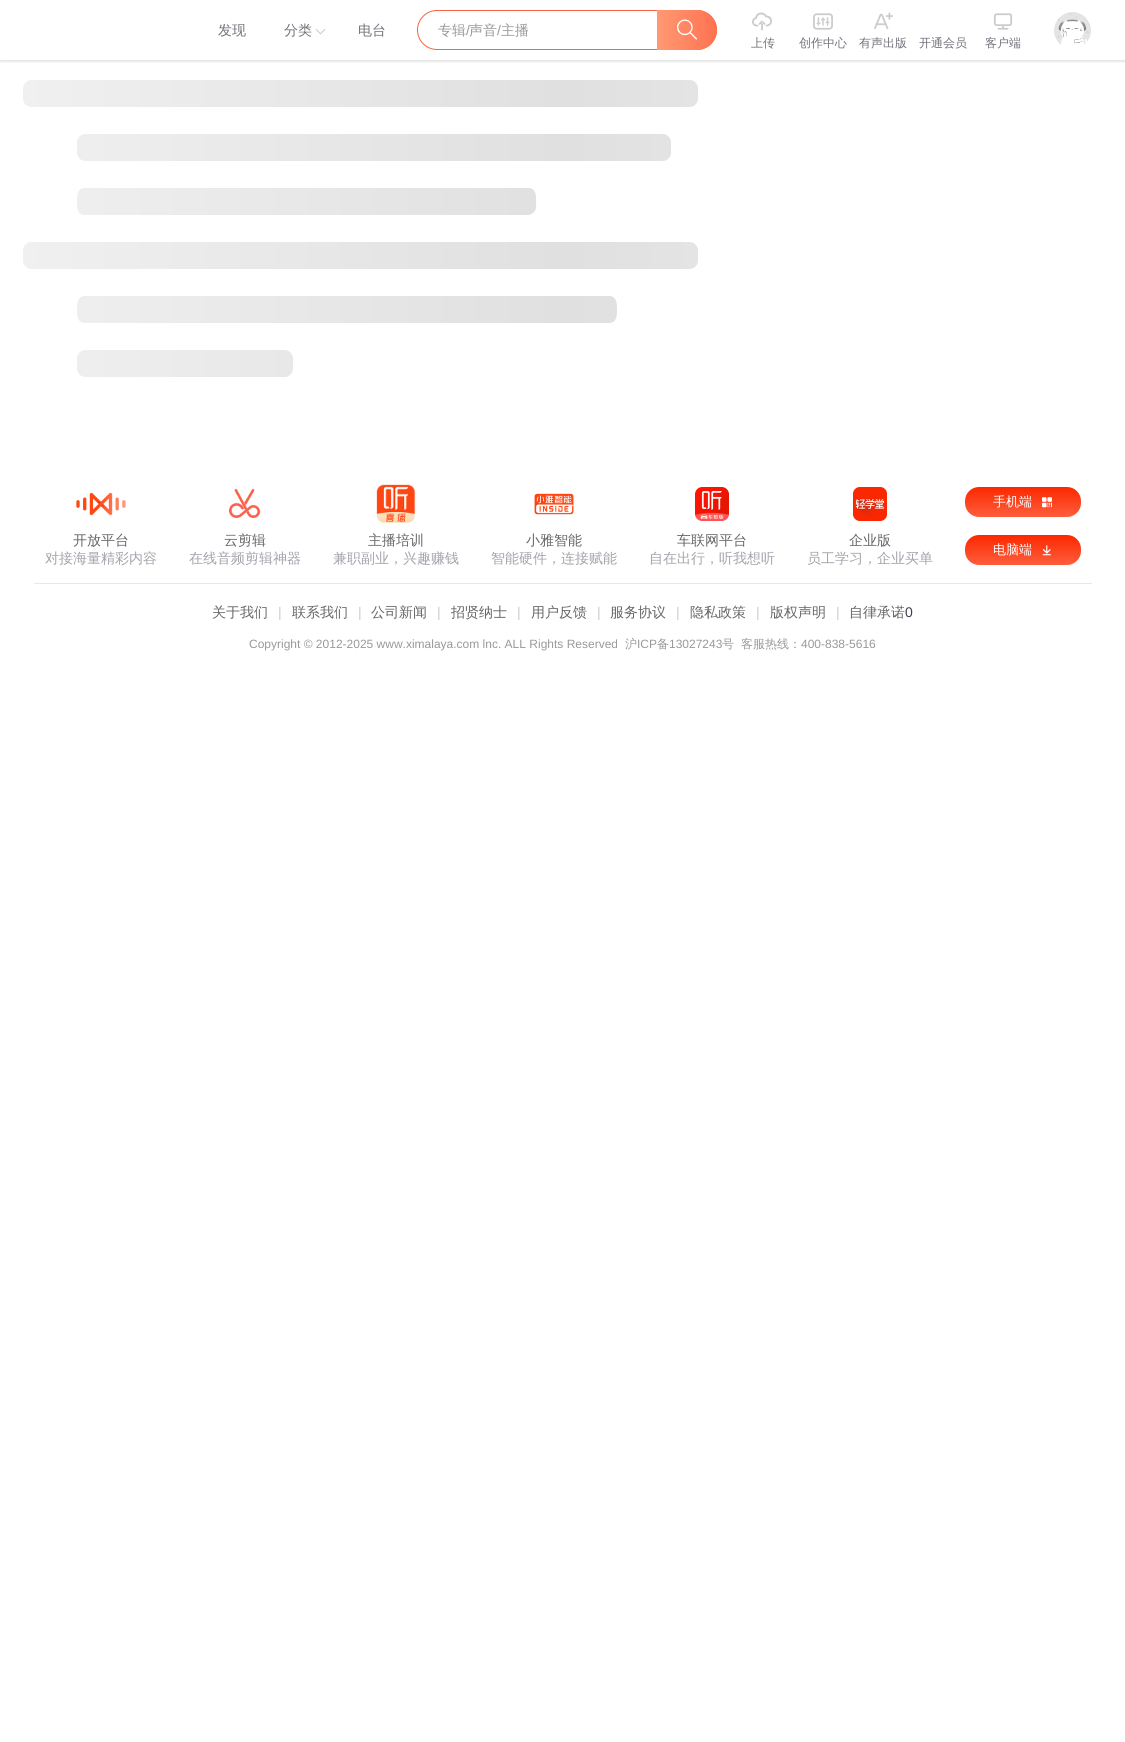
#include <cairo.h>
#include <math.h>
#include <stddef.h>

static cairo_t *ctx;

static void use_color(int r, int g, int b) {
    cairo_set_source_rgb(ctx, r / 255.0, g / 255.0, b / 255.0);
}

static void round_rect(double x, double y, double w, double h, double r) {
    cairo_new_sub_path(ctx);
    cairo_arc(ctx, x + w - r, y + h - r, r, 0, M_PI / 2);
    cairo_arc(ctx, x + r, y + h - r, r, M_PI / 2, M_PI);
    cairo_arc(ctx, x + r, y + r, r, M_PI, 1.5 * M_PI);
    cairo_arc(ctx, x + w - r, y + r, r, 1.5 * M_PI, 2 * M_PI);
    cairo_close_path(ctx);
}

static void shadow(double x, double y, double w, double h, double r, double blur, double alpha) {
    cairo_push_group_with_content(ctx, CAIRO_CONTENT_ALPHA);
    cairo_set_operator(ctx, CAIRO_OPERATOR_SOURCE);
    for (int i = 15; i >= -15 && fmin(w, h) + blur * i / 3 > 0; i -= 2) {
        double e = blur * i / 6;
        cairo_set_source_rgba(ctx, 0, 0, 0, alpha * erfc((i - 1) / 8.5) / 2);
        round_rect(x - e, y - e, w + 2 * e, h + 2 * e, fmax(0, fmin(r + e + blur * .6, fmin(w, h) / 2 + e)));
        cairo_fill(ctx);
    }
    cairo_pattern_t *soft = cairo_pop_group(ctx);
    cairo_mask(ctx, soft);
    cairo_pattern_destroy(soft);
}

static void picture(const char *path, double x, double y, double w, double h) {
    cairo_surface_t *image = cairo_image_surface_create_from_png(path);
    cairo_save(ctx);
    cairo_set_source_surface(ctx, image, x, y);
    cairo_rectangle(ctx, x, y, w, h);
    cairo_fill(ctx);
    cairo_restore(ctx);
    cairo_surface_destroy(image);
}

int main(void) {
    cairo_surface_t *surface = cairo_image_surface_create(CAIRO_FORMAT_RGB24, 1125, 1742);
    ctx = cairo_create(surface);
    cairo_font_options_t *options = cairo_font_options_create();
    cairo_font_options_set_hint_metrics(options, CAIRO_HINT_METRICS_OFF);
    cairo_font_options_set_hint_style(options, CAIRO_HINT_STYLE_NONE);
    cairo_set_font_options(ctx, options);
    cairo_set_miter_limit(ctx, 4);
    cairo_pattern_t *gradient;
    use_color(255, 255, 255);
    cairo_paint(ctx);
    cairo_save(ctx);
    cairo_rectangle(ctx, 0, 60, 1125, 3);
    cairo_clip(ctx);
    use_color(0, 0, 0);
    shadow(0, 2, 1125, 60, 0, 1, 0.1);
    cairo_restore(ctx);
    cairo_select_font_face(ctx, "WenQuanYi Zen Hei Medium", CAIRO_FONT_SLANT_NORMAL, CAIRO_FONT_WEIGHT_NORMAL);
    cairo_set_font_size(ctx, 14);
    use_color(114, 114, 123);
    cairo_move_to(ctx, 218, 35);
    cairo_show_text(ctx, "发现");
    cairo_move_to(ctx, 284, 35);
    cairo_show_text(ctx, "分类");
    use_color(204, 204, 204);
    cairo_new_path(ctx);
    cairo_move_to(ctx, 325.5, 29.5);
    cairo_line_to(ctx, 320.5, 34.5);
    cairo_line_to(ctx, 320, 33.5);
    cairo_line_to(ctx, 324.5, 29);
    cairo_close_path(ctx);
    cairo_fill(ctx);
    cairo_new_path(ctx);
    cairo_move_to(ctx, 321, 33.5);
    cairo_line_to(ctx, 320.5, 34.5);
    cairo_line_to(ctx, 315.5, 29.5);
    cairo_line_to(ctx, 316.5, 29);
    cairo_close_path(ctx);
    cairo_fill(ctx);
    use_color(114, 114, 123);
    cairo_move_to(ctx, 358, 35);
    cairo_show_text(ctx, "电台");
    round_rect(417.5, 10.5, 299, 39, 19.5);
    use_color(248, 100, 66);
    cairo_set_line_width(ctx, 1);
    cairo_stroke(ctx);
    use_color(153, 153, 153);
    cairo_move_to(ctx, 438, 35);
    cairo_show_text(ctx, "专辑");
    cairo_select_font_face(ctx, "Liberation Sans", CAIRO_FONT_SLANT_NORMAL, CAIRO_FONT_WEIGHT_NORMAL);
    cairo_move_to(ctx, 466, 35);
    cairo_show_text(ctx, "/");
    cairo_select_font_face(ctx, "WenQuanYi Zen Hei Medium", CAIRO_FONT_SLANT_NORMAL, CAIRO_FONT_WEIGHT_NORMAL);
    cairo_move_to(ctx, 469, 35);
    cairo_show_text(ctx, "声音");
    cairo_select_font_face(ctx, "Liberation Sans", CAIRO_FONT_SLANT_NORMAL, CAIRO_FONT_WEIGHT_NORMAL);
    cairo_move_to(ctx, 497, 35);
    cairo_show_text(ctx, "/");
    cairo_select_font_face(ctx, "WenQuanYi Zen Hei Medium", CAIRO_FONT_SLANT_NORMAL, CAIRO_FONT_WEIGHT_NORMAL);
    cairo_move_to(ctx, 501, 35);
    cairo_show_text(ctx, "主播");
    gradient = cairo_pattern_create_linear(657, 30, 717, 30);
    cairo_pattern_add_color_stop_rgba(gradient, 0.01, 1, 0.6, 0.451, 1);
    cairo_pattern_add_color_stop_rgba(gradient, 0.99, 1, 0.447, 0.318, 1);
    cairo_set_source(ctx, gradient);
    cairo_pattern_destroy(gradient);
    cairo_new_path(ctx);
    cairo_move_to(ctx, 657, 10);
    cairo_line_to(ctx, 697, 10);
    cairo_curve_to(ctx, 708, 10, 717, 19, 717, 30);
    cairo_curve_to(ctx, 717, 41, 708, 50, 697, 50);
    cairo_line_to(ctx, 657, 50);
    cairo_close_path(ctx);
    cairo_fill(ctx);
    picture("img1.png", 677, 19, 20, 21);
    picture("img2.png", 752, 12, 20, 19);
    cairo_set_font_size(ctx, 12);
    use_color(114, 114, 123);
    cairo_move_to(ctx, 751, 47);
    cairo_show_text(ctx, "上传");
    picture("img3.png", 813, 13, 20, 17);
    cairo_move_to(ctx, 799, 47);
    cairo_show_text(ctx, "创作中心");
    picture("img4.png", 874, 12, 19, 18);
    cairo_move_to(ctx, 859, 47);
    cairo_show_text(ctx, "有声出版");
    cairo_move_to(ctx, 919, 47);
    cairo_show_text(ctx, "开通会员");
    picture("img5.png", 993, 13, 20, 17);
    cairo_move_to(ctx, 985, 47);
    cairo_show_text(ctx, "客户端");
    picture("img6.png", 1054, 12, 37, 33);
    gradient = cairo_pattern_create_linear(23, 80, 1103, 80);
    cairo_pattern_add_color_stop_rgba(gradient, 0, 0.941, 0.941, 0.941, 1);
    cairo_pattern_add_color_stop_rgba(gradient, 0.5, 0.878, 0.878, 0.878, 1);
    cairo_pattern_add_color_stop_rgba(gradient, 1, 0.941, 0.941, 0.941, 1);
    cairo_set_source(ctx, gradient);
    cairo_pattern_destroy(gradient);
    cairo_set_fill_rule(ctx, CAIRO_FILL_RULE_EVEN_ODD);
    cairo_new_path(ctx);
    cairo_move_to(ctx, 31, 80);
    cairo_curve_to(ctx, 27, 80, 23, 84, 23, 88);
    cairo_line_to(ctx, 23, 99);
    cairo_curve_to(ctx, 23, 103, 27, 107, 31, 107);
    cairo_line_to(ctx, 690, 107);
    cairo_curve_to(ctx, 694, 107, 698, 103, 698, 99);
    cairo_line_to(ctx, 698, 88);
    cairo_curve_to(ctx, 698, 84, 694, 80, 690, 80);
    cairo_close_path(ctx);
    cairo_move_to(ctx, 31, 242);
    cairo_curve_to(ctx, 27, 242, 23, 246, 23, 250);
    cairo_line_to(ctx, 23, 261);
    cairo_curve_to(ctx, 23, 265, 27, 269, 31, 269);
    cairo_line_to(ctx, 690, 269);
    cairo_curve_to(ctx, 694, 269, 698, 265, 698, 261);
    cairo_line_to(ctx, 698, 250);
    cairo_curve_to(ctx, 698, 246, 694, 242, 690, 242);
    cairo_close_path(ctx);
    cairo_move_to(ctx, 85, 134);
    cairo_curve_to(ctx, 81, 134, 77, 138, 77, 142);
    cairo_line_to(ctx, 77, 153);
    cairo_curve_to(ctx, 77, 157, 81, 161, 85, 161);
    cairo_line_to(ctx, 663, 161);
    cairo_curve_to(ctx, 667, 161, 671, 157, 671, 153);
    cairo_line_to(ctx, 671, 142);
    cairo_curve_to(ctx, 671, 138, 667, 134, 663, 134);
    cairo_close_path(ctx);
    cairo_move_to(ctx, 85, 188);
    cairo_curve_to(ctx, 77, 188, 77, 196, 77, 202);
    cairo_curve_to(ctx, 77, 207, 77, 215, 85, 215);
    cairo_line_to(ctx, 528, 215);
    cairo_curve_to(ctx, 532, 215, 536, 211, 536, 207);
    cairo_curve_to(ctx, 536, 200, 538, 188, 528, 188);
    cairo_close_path(ctx);
    cairo_move_to(ctx, 85, 296);
    cairo_curve_to(ctx, 77, 296, 77, 304, 77, 310);
    cairo_curve_to(ctx, 77, 315, 77, 323, 85, 323);
    cairo_line_to(ctx, 609, 323);
    cairo_curve_to(ctx, 617, 323, 617, 315, 617, 310);
    cairo_curve_to(ctx, 617, 304, 617, 296, 609, 296);
    cairo_close_path(ctx);
    cairo_move_to(ctx, 85, 350);
    cairo_curve_to(ctx, 81, 350, 77, 354, 77, 358);
    cairo_line_to(ctx, 77, 369);
    cairo_curve_to(ctx, 77, 373, 81, 377, 85, 377);
    cairo_line_to(ctx, 285, 377);
    cairo_curve_to(ctx, 289, 377, 293, 373, 293, 369);
    cairo_line_to(ctx, 293, 358);
    cairo_curve_to(ctx, 293, 354, 289, 350, 285, 350);
    cairo_close_path(ctx);
    cairo_fill(ctx);
    use_color(232, 232, 232);
    cairo_rectangle(ctx, 34, 583, 1058, 1);
    cairo_fill(ctx);
    picture("img7.png", 76, 492, 50, 24);
    cairo_set_font_size(ctx, 14);
    use_color(102, 102, 102);
    cairo_move_to(ctx, 73, 545);
    cairo_show_text(ctx, "开放平台");
    use_color(163, 163, 172);
    cairo_move_to(ctx, 45, 563);
    cairo_show_text(ctx, "对接海量精彩内容");
    picture("img8.png", 229, 488, 32, 30);
    use_color(102, 102, 102);
    cairo_move_to(ctx, 224, 545);
    cairo_show_text(ctx, "云剪辑");
    use_color(163, 163, 172);
    cairo_move_to(ctx, 189, 563);
    cairo_show_text(ctx, "在线音频剪辑神器");
    picture("img9.png", 376, 484, 40, 40);
    use_color(102, 102, 102);
    cairo_move_to(ctx, 368, 545);
    cairo_show_text(ctx, "主播培训");
    use_color(163, 163, 172);
    cairo_move_to(ctx, 333, 563);
    cairo_show_text(ctx, "兼职副业，兴趣赚钱");
    picture("img10.png", 534, 493, 40, 22);
    use_color(102, 102, 102);
    cairo_move_to(ctx, 526, 545);
    cairo_show_text(ctx, "小雅智能");
    use_color(163, 163, 172);
    cairo_move_to(ctx, 491, 563);
    cairo_show_text(ctx, "智能硬件，连接赋能");
    picture("img11.png", 695, 487, 34, 34);
    use_color(102, 102, 102);
    cairo_move_to(ctx, 677, 545);
    cairo_show_text(ctx, "车联网平台");
    use_color(163, 163, 172);
    cairo_move_to(ctx, 649, 563);
    cairo_show_text(ctx, "自在出行，听我想听");
    picture("img12.png", 853, 487, 34, 34);
    use_color(102, 102, 102);
    cairo_move_to(ctx, 849, 545);
    cairo_show_text(ctx, "企业版");
    use_color(163, 163, 172);
    cairo_move_to(ctx, 807, 563);
    cairo_show_text(ctx, "员工学习，企业买单");
    gradient = cairo_pattern_create_linear(1023, 487, 1023, 517);
    cairo_pattern_add_color_stop_rgba(gradient, 0, 0.98, 0.157, 0, 1);
    cairo_pattern_add_color_stop_rgba(gradient, 1, 1, 0.369, 0.239, 1);
    cairo_set_source(ctx, gradient);
    cairo_pattern_destroy(gradient);
    round_rect(965, 487, 116, 30, 14);
    cairo_fill(ctx);
    cairo_set_font_size(ctx, 13);
    use_color(255, 255, 255);
    cairo_move_to(ctx, 993, 506);
    cairo_show_text(ctx, "手机端");
    picture("img13.png", 1042, 497, 10, 11);
    gradient = cairo_pattern_create_linear(1023, 535, 1023, 565);
    cairo_pattern_add_color_stop_rgba(gradient, 0, 0.98, 0.157, 0, 1);
    cairo_pattern_add_color_stop_rgba(gradient, 1, 1, 0.369, 0.239, 1);
    cairo_set_source(ctx, gradient);
    cairo_pattern_destroy(gradient);
    round_rect(965, 535, 116, 30, 14);
    cairo_fill(ctx);
    use_color(255, 255, 255);
    cairo_move_to(ctx, 993, 554);
    cairo_show_text(ctx, "电脑端");
    picture("img14.png", 1042, 545, 9, 11);
    cairo_set_font_size(ctx, 14);
    use_color(102, 102, 102);
    cairo_move_to(ctx, 212, 617);
    cairo_show_text(ctx, "关于我们");
    cairo_select_font_face(ctx, "Liberation Sans", CAIRO_FONT_SLANT_NORMAL, CAIRO_FONT_WEIGHT_NORMAL);
    use_color(204, 204, 204);
    cairo_move_to(ctx, 278, 617);
    cairo_show_text(ctx, "|");
    cairo_select_font_face(ctx, "WenQuanYi Zen Hei Medium", CAIRO_FONT_SLANT_NORMAL, CAIRO_FONT_WEIGHT_NORMAL);
    use_color(102, 102, 102);
    cairo_move_to(ctx, 292, 617);
    cairo_show_text(ctx, "联系我们");
    cairo_select_font_face(ctx, "Liberation Sans", CAIRO_FONT_SLANT_NORMAL, CAIRO_FONT_WEIGHT_NORMAL);
    use_color(204, 204, 204);
    cairo_move_to(ctx, 358, 617);
    cairo_show_text(ctx, "|");
    cairo_select_font_face(ctx, "WenQuanYi Zen Hei Medium", CAIRO_FONT_SLANT_NORMAL, CAIRO_FONT_WEIGHT_NORMAL);
    use_color(102, 102, 102);
    cairo_move_to(ctx, 371, 617);
    cairo_show_text(ctx, "公司新闻");
    cairo_select_font_face(ctx, "Liberation Sans", CAIRO_FONT_SLANT_NORMAL, CAIRO_FONT_WEIGHT_NORMAL);
    use_color(204, 204, 204);
    cairo_move_to(ctx, 437, 617);
    cairo_show_text(ctx, "|");
    cairo_select_font_face(ctx, "WenQuanYi Zen Hei Medium", CAIRO_FONT_SLANT_NORMAL, CAIRO_FONT_WEIGHT_NORMAL);
    use_color(102, 102, 102);
    cairo_move_to(ctx, 451, 617);
    cairo_show_text(ctx, "招贤纳士");
    cairo_select_font_face(ctx, "Liberation Sans", CAIRO_FONT_SLANT_NORMAL, CAIRO_FONT_WEIGHT_NORMAL);
    use_color(204, 204, 204);
    cairo_move_to(ctx, 517, 617);
    cairo_show_text(ctx, "|");
    cairo_select_font_face(ctx, "WenQuanYi Zen Hei Medium", CAIRO_FONT_SLANT_NORMAL, CAIRO_FONT_WEIGHT_NORMAL);
    use_color(102, 102, 102);
    cairo_move_to(ctx, 531, 617);
    cairo_show_text(ctx, "用户反馈");
    cairo_select_font_face(ctx, "Liberation Sans", CAIRO_FONT_SLANT_NORMAL, CAIRO_FONT_WEIGHT_NORMAL);
    use_color(204, 204, 204);
    cairo_move_to(ctx, 597, 617);
    cairo_show_text(ctx, "|");
    cairo_select_font_face(ctx, "WenQuanYi Zen Hei Medium", CAIRO_FONT_SLANT_NORMAL, CAIRO_FONT_WEIGHT_NORMAL);
    use_color(102, 102, 102);
    cairo_move_to(ctx, 610, 617);
    cairo_show_text(ctx, "服务协议");
    cairo_select_font_face(ctx, "Liberation Sans", CAIRO_FONT_SLANT_NORMAL, CAIRO_FONT_WEIGHT_NORMAL);
    use_color(204, 204, 204);
    cairo_move_to(ctx, 676, 617);
    cairo_show_text(ctx, "|");
    cairo_select_font_face(ctx, "WenQuanYi Zen Hei Medium", CAIRO_FONT_SLANT_NORMAL, CAIRO_FONT_WEIGHT_NORMAL);
    use_color(102, 102, 102);
    cairo_move_to(ctx, 690, 617);
    cairo_show_text(ctx, "隐私政策");
    cairo_select_font_face(ctx, "Liberation Sans", CAIRO_FONT_SLANT_NORMAL, CAIRO_FONT_WEIGHT_NORMAL);
    use_color(204, 204, 204);
    cairo_move_to(ctx, 756, 617);
    cairo_show_text(ctx, "|");
    cairo_select_font_face(ctx, "WenQuanYi Zen Hei Medium", CAIRO_FONT_SLANT_NORMAL, CAIRO_FONT_WEIGHT_NORMAL);
    use_color(102, 102, 102);
    cairo_move_to(ctx, 770, 617);
    cairo_show_text(ctx, "版权声明");
    cairo_select_font_face(ctx, "Liberation Sans", CAIRO_FONT_SLANT_NORMAL, CAIRO_FONT_WEIGHT_NORMAL);
    use_color(204, 204, 204);
    cairo_move_to(ctx, 836, 617);
    cairo_show_text(ctx, "|");
    cairo_select_font_face(ctx, "WenQuanYi Zen Hei Medium", CAIRO_FONT_SLANT_NORMAL, CAIRO_FONT_WEIGHT_NORMAL);
    use_color(102, 102, 102);
    cairo_move_to(ctx, 849, 617);
    cairo_show_text(ctx, "自律承诺");
    cairo_select_font_face(ctx, "Liberation Sans", CAIRO_FONT_SLANT_NORMAL, CAIRO_FONT_WEIGHT_NORMAL);
    use_color(64, 64, 76);
    cairo_move_to(ctx, 905, 617);
    cairo_show_text(ctx, "0");
    cairo_set_font_size(ctx, 12);
    use_color(153, 153, 153);
    cairo_move_to(ctx, 249, 648);
    cairo_show_text(ctx, "Copyright © 2012-2025 www.ximalaya.com lnc. ALL Rights Reserved");
    cairo_select_font_face(ctx, "WenQuanYi Zen Hei Medium", CAIRO_FONT_SLANT_NORMAL, CAIRO_FONT_WEIGHT_NORMAL);
    cairo_move_to(ctx, 625, 648);
    cairo_show_text(ctx, "沪");
    cairo_select_font_face(ctx, "Liberation Sans", CAIRO_FONT_SLANT_NORMAL, CAIRO_FONT_WEIGHT_NORMAL);
    cairo_move_to(ctx, 637, 648);
    cairo_show_text(ctx, "ICP");
    cairo_select_font_face(ctx, "WenQuanYi Zen Hei Medium", CAIRO_FONT_SLANT_NORMAL, CAIRO_FONT_WEIGHT_NORMAL);
    cairo_move_to(ctx, 657, 648);
    cairo_show_text(ctx, "备");
    cairo_select_font_face(ctx, "Liberation Sans", CAIRO_FONT_SLANT_NORMAL, CAIRO_FONT_WEIGHT_NORMAL);
    cairo_move_to(ctx, 669, 648);
    cairo_show_text(ctx, "13027243");
    cairo_select_font_face(ctx, "WenQuanYi Zen Hei Medium", CAIRO_FONT_SLANT_NORMAL, CAIRO_FONT_WEIGHT_NORMAL);
    cairo_move_to(ctx, 722, 648);
    cairo_show_text(ctx, "号");
    cairo_move_to(ctx, 741, 648);
    cairo_show_text(ctx, "客服热线：");
    cairo_select_font_face(ctx, "Liberation Sans", CAIRO_FONT_SLANT_NORMAL, CAIRO_FONT_WEIGHT_NORMAL);
    cairo_move_to(ctx, 801, 648);
    cairo_show_text(ctx, "400-838-5616");
    cairo_surface_write_to_png(surface, "result.png");
    cairo_font_options_destroy(options);
    cairo_destroy(ctx);
    cairo_surface_destroy(surface);
    return 0;
}
